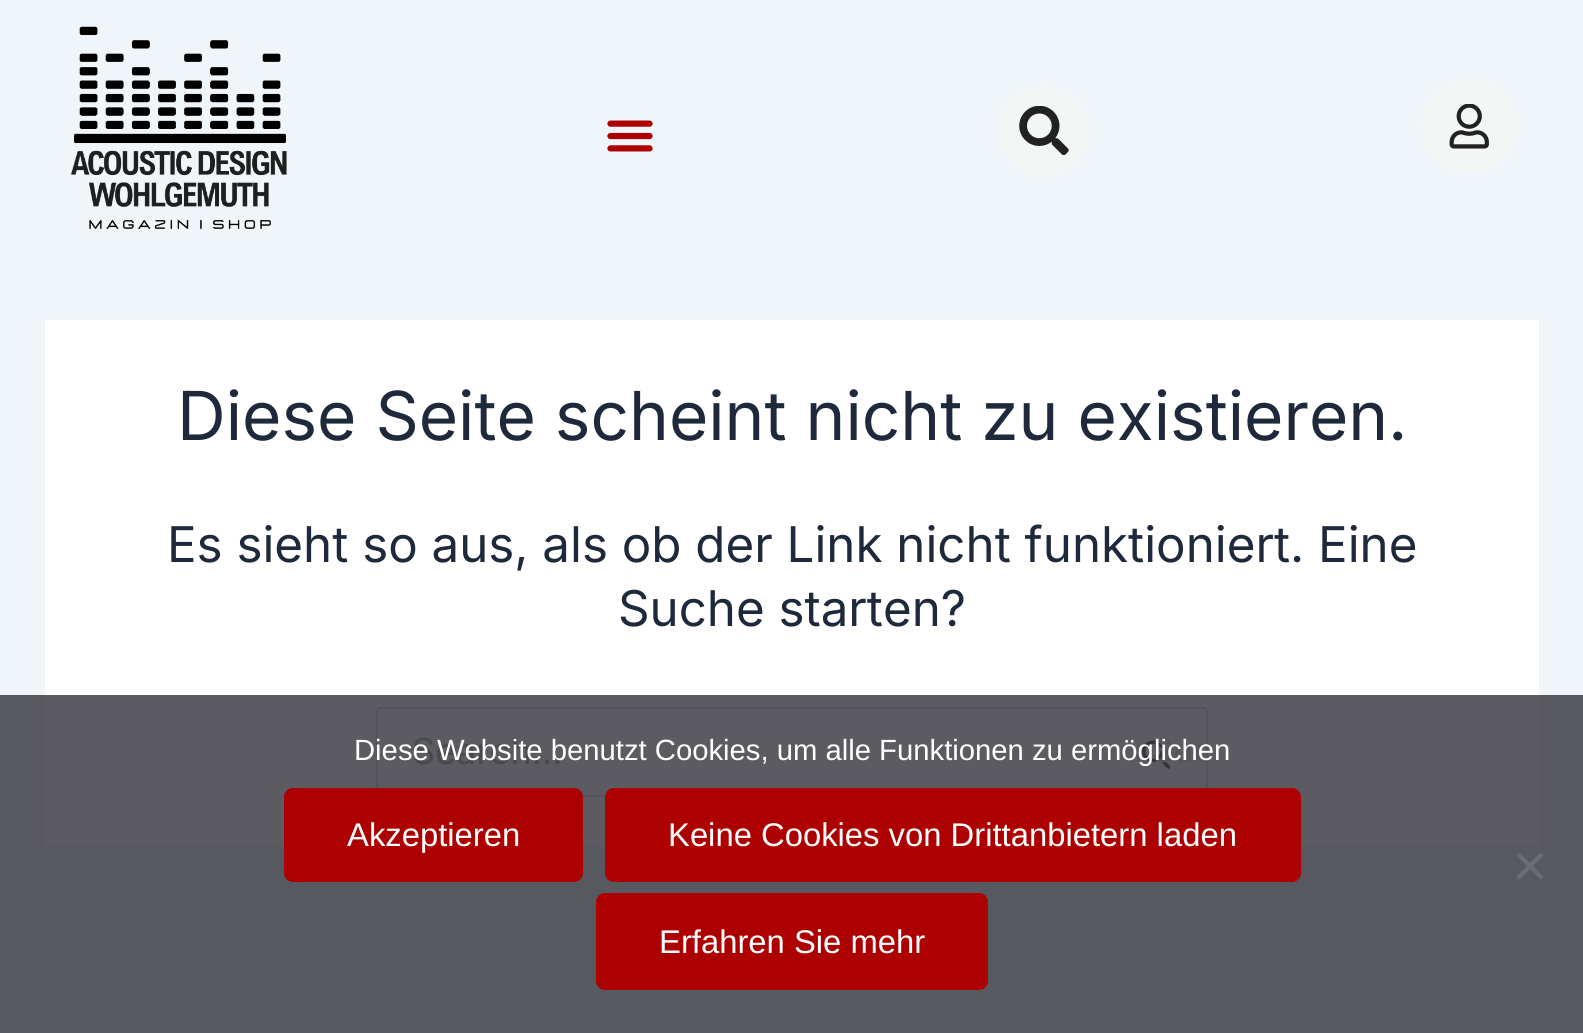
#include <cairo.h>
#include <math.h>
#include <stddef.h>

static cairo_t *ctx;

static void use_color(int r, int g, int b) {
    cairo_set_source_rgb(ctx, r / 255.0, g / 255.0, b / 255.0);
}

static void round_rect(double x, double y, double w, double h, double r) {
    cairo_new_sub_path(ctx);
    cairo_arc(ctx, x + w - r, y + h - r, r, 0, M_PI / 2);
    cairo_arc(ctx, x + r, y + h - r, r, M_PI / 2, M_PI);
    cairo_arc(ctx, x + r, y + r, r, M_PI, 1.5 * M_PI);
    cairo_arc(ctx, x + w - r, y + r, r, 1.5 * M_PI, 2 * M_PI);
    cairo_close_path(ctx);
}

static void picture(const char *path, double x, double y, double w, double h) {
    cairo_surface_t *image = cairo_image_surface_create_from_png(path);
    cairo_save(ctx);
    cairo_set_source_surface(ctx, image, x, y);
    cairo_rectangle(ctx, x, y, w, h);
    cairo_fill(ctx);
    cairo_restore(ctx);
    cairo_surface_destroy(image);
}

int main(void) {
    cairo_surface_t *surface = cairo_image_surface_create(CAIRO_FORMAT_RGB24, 1583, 1033);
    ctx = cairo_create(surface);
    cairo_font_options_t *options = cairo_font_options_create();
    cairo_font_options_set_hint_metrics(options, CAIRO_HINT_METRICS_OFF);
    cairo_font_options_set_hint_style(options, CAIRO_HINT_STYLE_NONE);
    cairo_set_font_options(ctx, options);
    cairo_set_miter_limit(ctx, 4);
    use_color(240, 245, 250);
    cairo_paint(ctx);
    use_color(88, 89, 96);
    cairo_rectangle(ctx, 0, 695, 1583, 198);
    cairo_fill(ctx);
    picture("img1.png", 71, 26, 216, 203);
    picture("img2.png", 607, 120, 46, 32);
    use_color(242, 246, 245);
    cairo_arc(ctx, 1044, 131, 45, 0, 2 * M_PI);
    cairo_fill(ctx);
    picture("img3.png", 1019, 106, 50, 49);
    round_rect(1422, 79, 95, 94, 47);
    cairo_fill(ctx);
    picture("img4.png", 1449, 104, 40, 45);
    use_color(255, 255, 255);
    cairo_rectangle(ctx, 45, 320, 1494, 375);
    cairo_fill(ctx);
    use_color(91, 91, 97);
    cairo_rectangle(ctx, 45, 695, 1494, 151);
    cairo_fill(ctx);
    cairo_select_font_face(ctx, "Inter", CAIRO_FONT_SLANT_NORMAL, CAIRO_FONT_WEIGHT_NORMAL);
    cairo_set_font_size(ctx, 67.5);
    use_color(30, 41, 59);
    cairo_move_to(ctx, 177, 440);
    cairo_show_text(ctx, "Diese Seite scheint nicht zu existieren.");
    cairo_set_font_size(ctx, 49.25);
    cairo_move_to(ctx, 167, 562);
    cairo_show_text(ctx, "Es sieht so aus, als ob der Link nicht funktioniert. Eine");
    cairo_move_to(ctx, 618, 626);
    cairo_show_text(ctx, "Suche starten?");
    round_rect(377, 708, 830, 88, 4);
    use_color(82, 83, 90);
    cairo_stroke(ctx);
    cairo_set_font_size(ctx, 36);
    use_color(71, 73, 81);
    cairo_move_to(ctx, 412, 764);
    cairo_show_text(ctx, "Search...");
    picture("img5.png", 1142, 740, 28, 30);
    cairo_save(ctx);
    round_rect(1107, 707, 101, 90, 5);
    cairo_clip(ctx);
    cairo_select_font_face(ctx, "Inter Medium", CAIRO_FONT_SLANT_NORMAL, CAIRO_FONT_WEIGHT_NORMAL);
    cairo_set_font_size(ctx, 32.8);
    use_color(85, 85, 92);
    cairo_move_to(ctx, 1152, 762);
    cairo_show_text(ctx, "Suc");
    cairo_restore(ctx);
    use_color(88, 89, 95);
    cairo_rectangle(ctx, 0, 893, 1583, 140);
    cairo_fill(ctx);
    cairo_select_font_face(ctx, "Liberation Sans", CAIRO_FONT_SLANT_NORMAL, CAIRO_FONT_WEIGHT_NORMAL);
    cairo_set_font_size(ctx, 29.25);
    use_color(255, 255, 255);
    cairo_move_to(ctx, 354, 760);
    cairo_show_text(ctx, "Diese Website benutzt Cookies, um alle Funktionen zu ermöglichen");
    use_color(173, 0, 0);
    round_rect(284, 788, 299, 94, 9);
    cairo_fill(ctx);
    cairo_set_font_size(ctx, 32.8);
    use_color(255, 255, 255);
    cairo_move_to(ctx, 347, 846);
    cairo_show_text(ctx, "Akzeptieren");
    use_color(173, 0, 0);
    round_rect(605, 788, 696, 94, 9);
    cairo_fill(ctx);
    use_color(255, 255, 255);
    cairo_move_to(ctx, 668, 846);
    cairo_show_text(ctx, "Keine Cookies von Drittanbietern laden");
    use_color(173, 0, 0);
    round_rect(596, 893, 392, 97, 9);
    cairo_fill(ctx);
    use_color(255, 255, 255);
    cairo_move_to(ctx, 659, 953);
    cairo_show_text(ctx, "Erfahren Sie mehr");
    use_color(108, 109, 112);
    cairo_new_path(ctx);
    cairo_move_to(ctx, 1540.5, 852.5);
    cairo_line_to(ctx, 1543.5, 855.5);
    cairo_line_to(ctx, 1519.5, 879.5);
    cairo_line_to(ctx, 1516.5, 876.5);
    cairo_close_path(ctx);
    cairo_fill(ctx);
    cairo_new_path(ctx);
    cairo_move_to(ctx, 1516.5, 855.5);
    cairo_line_to(ctx, 1519.5, 852.5);
    cairo_line_to(ctx, 1543.5, 876.5);
    cairo_line_to(ctx, 1540.5, 879.5);
    cairo_close_path(ctx);
    cairo_fill(ctx);
    cairo_surface_write_to_png(surface, "result.png");
    cairo_font_options_destroy(options);
    cairo_destroy(ctx);
    cairo_surface_destroy(surface);
    return 0;
}
